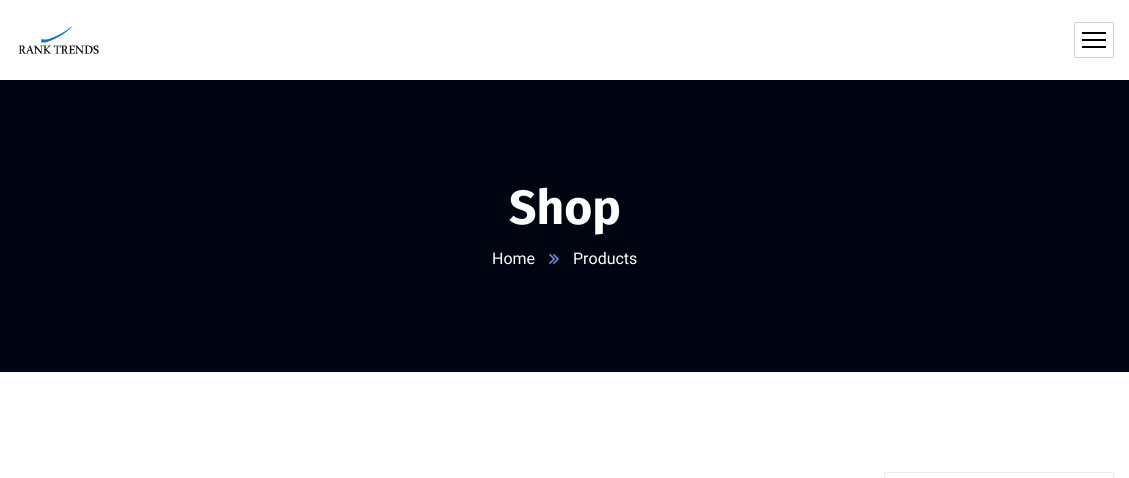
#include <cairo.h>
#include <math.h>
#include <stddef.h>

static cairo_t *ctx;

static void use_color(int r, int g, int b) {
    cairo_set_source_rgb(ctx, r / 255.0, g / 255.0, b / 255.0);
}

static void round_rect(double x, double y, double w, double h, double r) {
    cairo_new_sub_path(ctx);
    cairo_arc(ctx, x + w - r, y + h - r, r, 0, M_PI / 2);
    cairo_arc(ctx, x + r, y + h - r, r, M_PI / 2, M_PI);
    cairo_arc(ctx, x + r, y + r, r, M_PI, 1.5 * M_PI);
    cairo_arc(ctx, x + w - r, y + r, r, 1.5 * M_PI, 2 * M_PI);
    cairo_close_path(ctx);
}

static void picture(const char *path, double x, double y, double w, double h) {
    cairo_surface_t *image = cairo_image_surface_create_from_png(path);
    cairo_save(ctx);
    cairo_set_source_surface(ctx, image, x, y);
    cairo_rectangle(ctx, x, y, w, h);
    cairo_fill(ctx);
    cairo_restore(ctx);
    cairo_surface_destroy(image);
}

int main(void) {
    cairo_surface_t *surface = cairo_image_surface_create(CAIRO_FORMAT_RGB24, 1129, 478);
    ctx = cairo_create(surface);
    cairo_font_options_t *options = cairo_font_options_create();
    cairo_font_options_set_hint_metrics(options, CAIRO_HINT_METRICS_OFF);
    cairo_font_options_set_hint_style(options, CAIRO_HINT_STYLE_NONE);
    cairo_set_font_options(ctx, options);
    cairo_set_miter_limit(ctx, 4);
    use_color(255, 255, 255);
    cairo_paint(ctx);
    picture("img1.png", 18, 26, 81, 28);
    round_rect(1074.5, 22.5, 39, 35, 1.5);
    use_color(209, 209, 209);
    cairo_set_line_width(ctx, 1);
    cairo_stroke(ctx);
    use_color(0, 0, 0);
    cairo_rectangle(ctx, 1082, 32, 24, 2);
    cairo_fill(ctx);
    cairo_rectangle(ctx, 1082, 39, 24, 2);
    cairo_fill(ctx);
    cairo_rectangle(ctx, 1082, 46, 24, 2);
    cairo_fill(ctx);
    use_color(0, 6, 17);
    cairo_rectangle(ctx, 0, 80, 1129, 292);
    cairo_fill(ctx);
    cairo_select_font_face(ctx, "Fira Sans", CAIRO_FONT_SLANT_NORMAL, CAIRO_FONT_WEIGHT_BOLD);
    cairo_set_font_size(ctx, 48);
    use_color(255, 255, 255);
    cairo_move_to(ctx, 509, 224);
    cairo_show_text(ctx, "Shop");
    cairo_select_font_face(ctx, "Roboto", CAIRO_FONT_SLANT_NORMAL, CAIRO_FONT_WEIGHT_NORMAL);
    cairo_set_font_size(ctx, 16);
    cairo_move_to(ctx, 492, 264);
    cairo_show_text(ctx, "Home");
    picture("img2.png", 549, 254, 10, 10);
    cairo_move_to(ctx, 573, 264);
    cairo_show_text(ctx, "Products");
    cairo_rectangle(ctx, 884.5, 472.5, 229, 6);
    use_color(236, 236, 236);
    cairo_stroke(ctx);
    cairo_surface_write_to_png(surface, "result.png");
    cairo_font_options_destroy(options);
    cairo_destroy(ctx);
    cairo_surface_destroy(surface);
    return 0;
}
